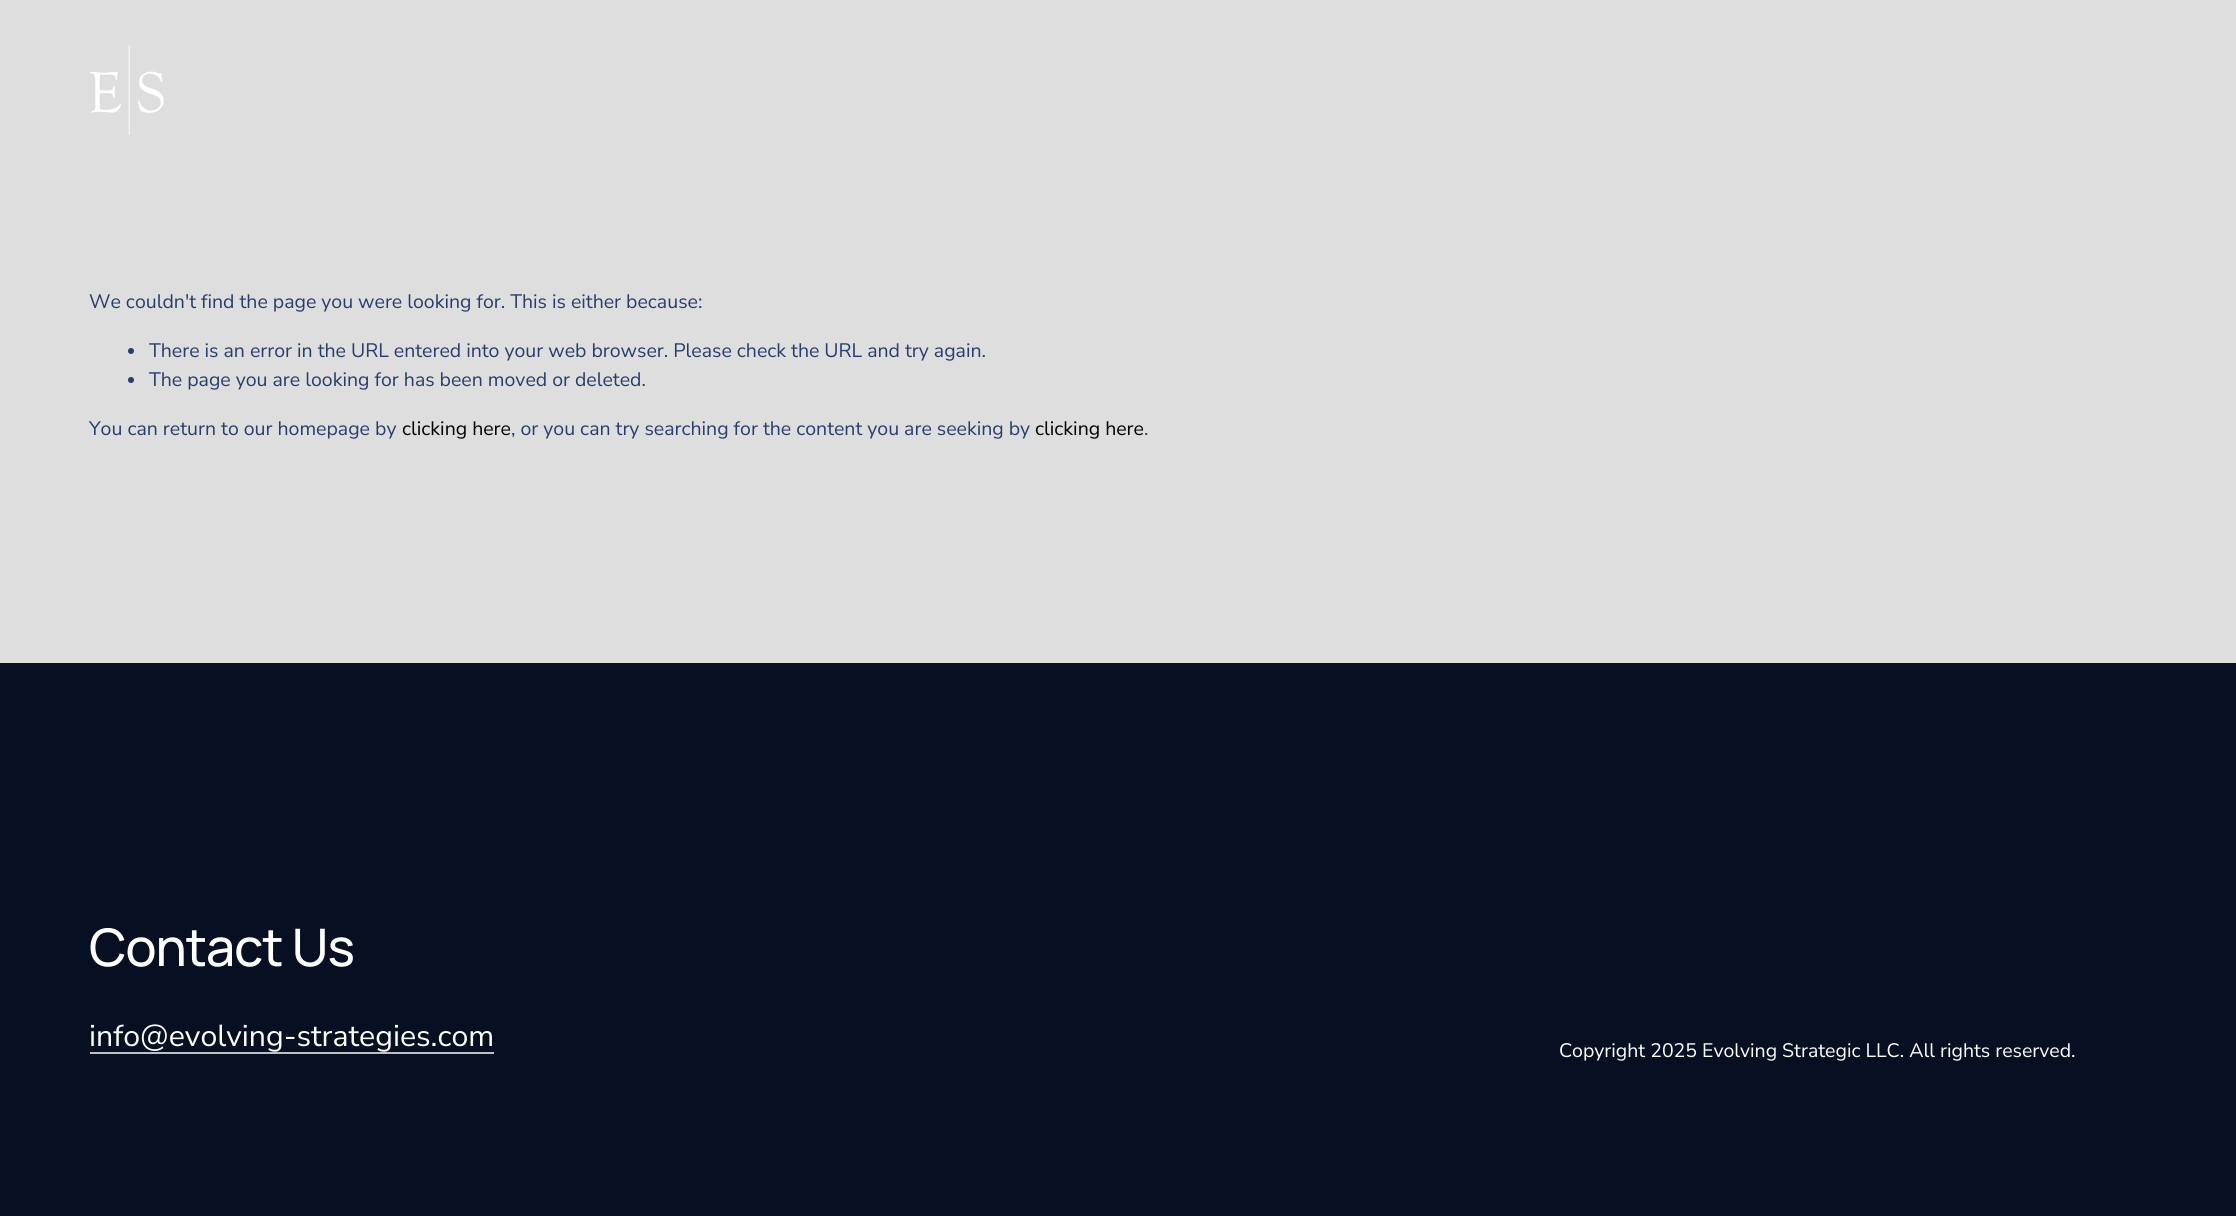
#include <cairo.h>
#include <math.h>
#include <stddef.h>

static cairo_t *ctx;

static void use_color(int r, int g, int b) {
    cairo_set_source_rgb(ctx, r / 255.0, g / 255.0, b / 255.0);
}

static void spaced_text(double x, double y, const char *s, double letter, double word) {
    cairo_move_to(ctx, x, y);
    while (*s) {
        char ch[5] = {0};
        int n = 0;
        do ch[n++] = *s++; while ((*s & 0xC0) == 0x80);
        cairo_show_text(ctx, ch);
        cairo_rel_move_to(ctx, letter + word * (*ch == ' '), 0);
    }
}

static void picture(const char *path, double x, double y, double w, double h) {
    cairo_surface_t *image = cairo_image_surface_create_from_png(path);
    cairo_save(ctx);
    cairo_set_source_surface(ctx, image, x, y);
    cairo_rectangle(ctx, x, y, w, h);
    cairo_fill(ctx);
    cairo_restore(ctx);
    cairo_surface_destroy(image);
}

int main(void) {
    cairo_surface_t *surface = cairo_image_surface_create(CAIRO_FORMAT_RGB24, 2236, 1216);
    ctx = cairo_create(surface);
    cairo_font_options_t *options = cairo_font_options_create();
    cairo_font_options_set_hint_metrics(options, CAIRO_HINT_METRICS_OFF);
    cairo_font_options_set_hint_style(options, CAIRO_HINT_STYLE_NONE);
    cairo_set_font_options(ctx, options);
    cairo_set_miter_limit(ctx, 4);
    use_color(222, 222, 222);
    cairo_paint(ctx);
    picture("img1.png", 90, 45, 74, 90);
    cairo_select_font_face(ctx, "Nunito Sans", CAIRO_FONT_SLANT_NORMAL, CAIRO_FONT_WEIGHT_NORMAL);
    cairo_set_font_size(ctx, 19.5);
    use_color(40, 61, 107);
    cairo_move_to(ctx, 89, 308);
    cairo_show_text(ctx, "We couldn't find the page you were looking for. This is either because:");
    cairo_new_path(ctx);
    cairo_arc(ctx, 131, 351, 3, 0, 2 * M_PI);
    cairo_fill(ctx);
    cairo_move_to(ctx, 149, 357);
    cairo_show_text(ctx, "There is an error in the URL entered into your web browser. Please check the URL and try again.");
    cairo_new_path(ctx);
    cairo_arc(ctx, 131, 380, 3, 0, 2 * M_PI);
    cairo_fill(ctx);
    cairo_move_to(ctx, 149, 386);
    cairo_show_text(ctx, "The page you are looking for has been moved or deleted.");
    cairo_move_to(ctx, 89, 435);
    cairo_show_text(ctx, "You can return to our homepage by");
    use_color(0, 0, 0);
    cairo_move_to(ctx, 402, 435);
    cairo_show_text(ctx, "clicking here");
    use_color(40, 61, 107);
    cairo_move_to(ctx, 511, 435);
    cairo_show_text(ctx, ", or you can try searching for the content you are seeking by");
    use_color(0, 0, 0);
    cairo_move_to(ctx, 1035, 435);
    cairo_show_text(ctx, "clicking here");
    use_color(40, 61, 107);
    cairo_move_to(ctx, 1144, 435);
    cairo_show_text(ctx, ".");
    use_color(7, 16, 35);
    cairo_rectangle(ctx, 0, 663, 2236, 553);
    cairo_fill(ctx);
    cairo_select_font_face(ctx, "Manrope Medium", CAIRO_FONT_SLANT_NORMAL, CAIRO_FONT_WEIGHT_NORMAL);
    cairo_set_font_size(ctx, 51.75);
    use_color(255, 255, 255);
    spaced_text(89, 966, "Contact Us", -1, 0);
    cairo_select_font_face(ctx, "Nunito Sans", CAIRO_FONT_SLANT_NORMAL, CAIRO_FONT_WEIGHT_NORMAL);
    cairo_set_font_size(ctx, 30.25);
    cairo_move_to(ctx, 89, 1046);
    cairo_show_text(ctx, "info@evolving-strategies.com");
    use_color(191, 191, 191);
    cairo_rectangle(ctx, 90, 1052, 404, 2);
    cairo_fill(ctx);
    cairo_set_font_size(ctx, 19.5);
    use_color(255, 255, 255);
    cairo_move_to(ctx, 1559, 1057);
    cairo_show_text(ctx, "Copyright 2025 Evolving Strategic LLC. All rights reserved.");
    cairo_surface_write_to_png(surface, "result.png");
    cairo_font_options_destroy(options);
    cairo_destroy(ctx);
    cairo_surface_destroy(surface);
    return 0;
}
